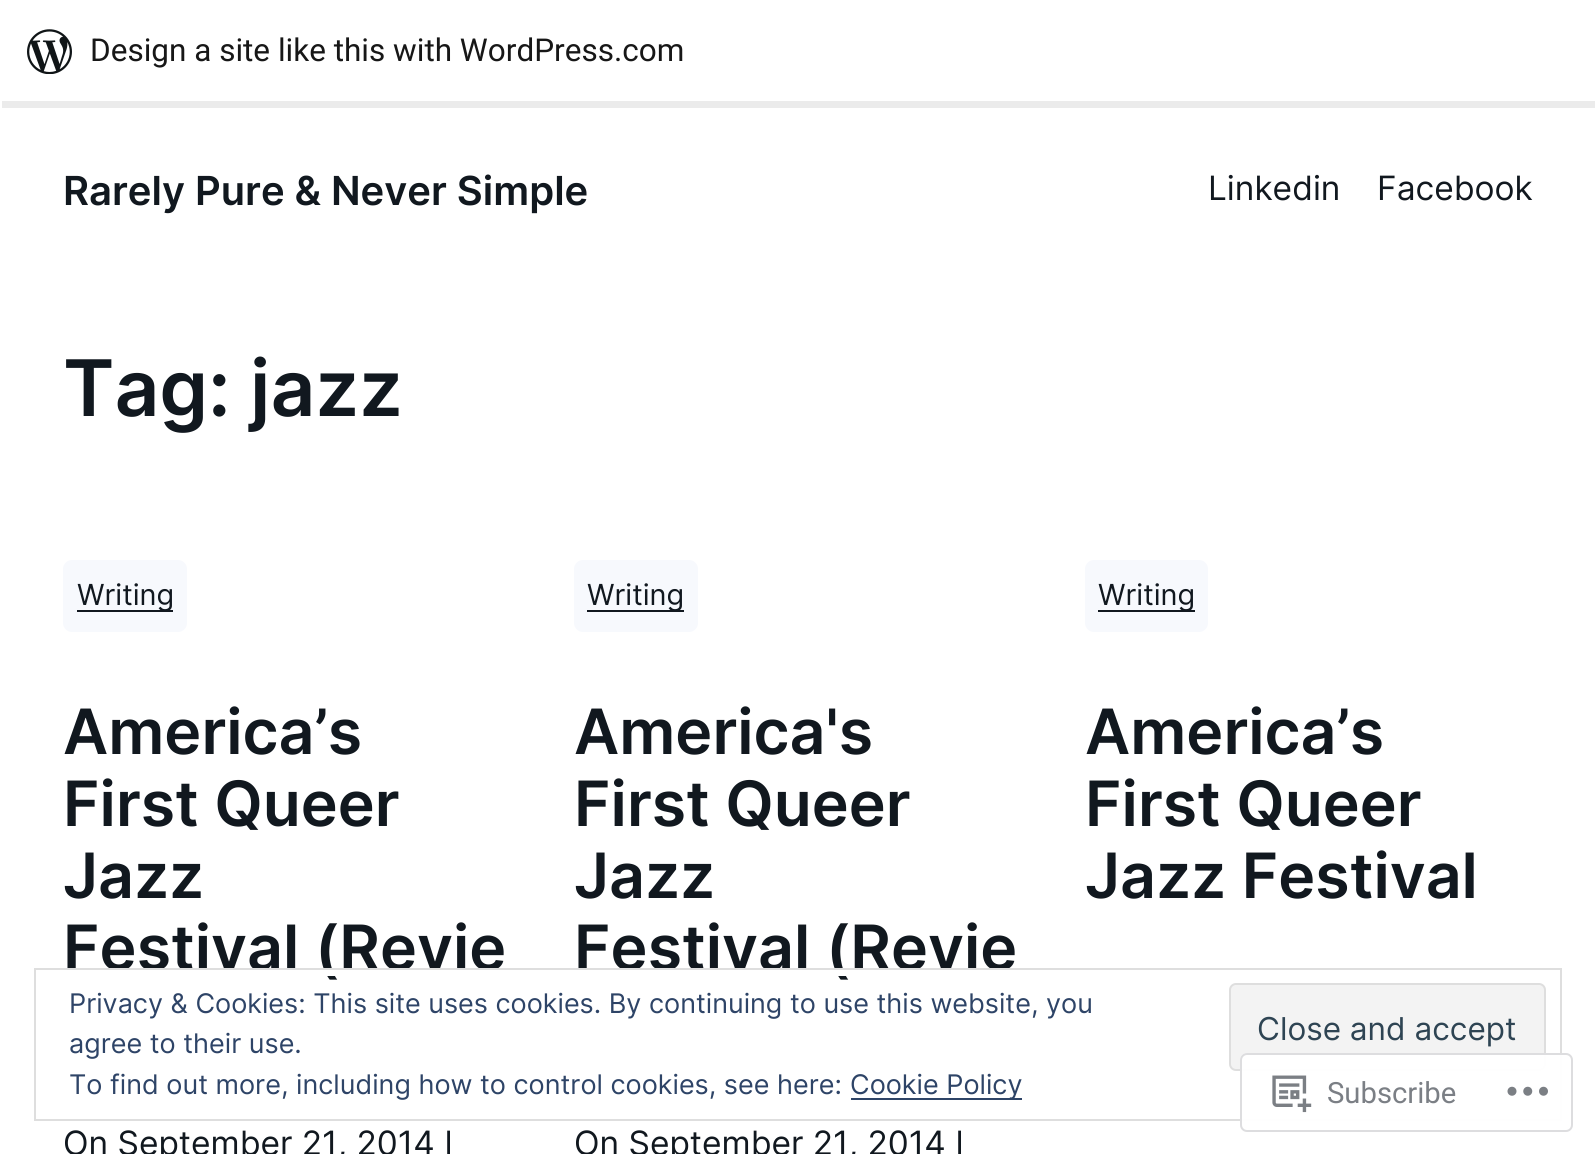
#include <cairo.h>
#include <math.h>
#include <stddef.h>

static cairo_t *ctx;

static void use_color(int r, int g, int b) {
    cairo_set_source_rgb(ctx, r / 255.0, g / 255.0, b / 255.0);
}

static void round_rect(double x, double y, double w, double h, double r) {
    cairo_new_sub_path(ctx);
    cairo_arc(ctx, x + w - r, y + h - r, r, 0, M_PI / 2);
    cairo_arc(ctx, x + r, y + h - r, r, M_PI / 2, M_PI);
    cairo_arc(ctx, x + r, y + r, r, M_PI, 1.5 * M_PI);
    cairo_arc(ctx, x + w - r, y + r, r, 1.5 * M_PI, 2 * M_PI);
    cairo_close_path(ctx);
}

static void picture(const char *path, double x, double y, double w, double h) {
    cairo_surface_t *image = cairo_image_surface_create_from_png(path);
    cairo_save(ctx);
    cairo_set_source_surface(ctx, image, x, y);
    cairo_rectangle(ctx, x, y, w, h);
    cairo_fill(ctx);
    cairo_restore(ctx);
    cairo_surface_destroy(image);
}

int main(void) {
    cairo_surface_t *surface = cairo_image_surface_create(CAIRO_FORMAT_RGB24, 1595, 1154);
    ctx = cairo_create(surface);
    cairo_font_options_t *options = cairo_font_options_create();
    cairo_font_options_set_hint_metrics(options, CAIRO_HINT_METRICS_OFF);
    cairo_font_options_set_hint_style(options, CAIRO_HINT_STYLE_NONE);
    cairo_set_font_options(ctx, options);
    cairo_set_miter_limit(ctx, 4);
    use_color(255, 255, 255);
    cairo_paint(ctx);
    cairo_set_source_rgba(ctx, 0, 0, 0, 0.08);
    cairo_new_path(ctx);
    cairo_move_to(ctx, 2, 101);
    cairo_line_to(ctx, 2, 108);
    cairo_line_to(ctx, 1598, 108);
    cairo_line_to(ctx, 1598, 7);
    cairo_line_to(ctx, 1595, 7);
    cairo_line_to(ctx, 1595, 101);
    cairo_close_path(ctx);
    cairo_fill(ctx);
    picture("img1.png", 27, 29, 45, 45);
    cairo_select_font_face(ctx, "Roboto", CAIRO_FONT_SLANT_NORMAL, CAIRO_FONT_WEIGHT_NORMAL);
    cairo_set_font_size(ctx, 31.5);
    use_color(23, 23, 23);
    cairo_move_to(ctx, 90, 61);
    cairo_show_text(ctx, "Design a site like this with WordPress.com");
    cairo_select_font_face(ctx, "Inter SemiBold", CAIRO_FONT_SLANT_NORMAL, CAIRO_FONT_WEIGHT_NORMAL);
    cairo_set_font_size(ctx, 40);
    use_color(17, 24, 31);
    cairo_move_to(ctx, 63, 205);
    cairo_show_text(ctx, "Rarely Pure & Never Simple");
    cairo_select_font_face(ctx, "Inter", CAIRO_FONT_SLANT_NORMAL, CAIRO_FONT_WEIGHT_NORMAL);
    cairo_set_font_size(ctx, 33.5);
    cairo_move_to(ctx, 1208, 200);
    cairo_show_text(ctx, "Linkedin");
    cairo_move_to(ctx, 1377, 200);
    cairo_show_text(ctx, "Facebook");
    cairo_select_font_face(ctx, "Inter SemiBold", CAIRO_FONT_SLANT_NORMAL, CAIRO_FONT_WEIGHT_NORMAL);
    cairo_set_font_size(ctx, 78);
    cairo_move_to(ctx, 63, 416);
    cairo_show_text(ctx, "Tag: jazz");
    use_color(247, 249, 253);
    round_rect(63, 560, 124, 72, 9);
    cairo_fill(ctx);
    use_color(17, 24, 31);
    cairo_rectangle(ctx, 77, 610, 96, 2);
    cairo_fill(ctx);
    cairo_select_font_face(ctx, "Inter", CAIRO_FONT_SLANT_NORMAL, CAIRO_FONT_WEIGHT_NORMAL);
    cairo_set_font_size(ctx, 29);
    cairo_move_to(ctx, 77, 605);
    cairo_show_text(ctx, "Writing");
    cairo_select_font_face(ctx, "Inter SemiBold", CAIRO_FONT_SLANT_NORMAL, CAIRO_FONT_WEIGHT_NORMAL);
    cairo_set_font_size(ctx, 62.5);
    cairo_move_to(ctx, 63, 754);
    cairo_show_text(ctx, "America’s");
    cairo_move_to(ctx, 63, 826);
    cairo_show_text(ctx, "First Queer");
    cairo_move_to(ctx, 63, 898);
    cairo_show_text(ctx, "Jazz");
    cairo_move_to(ctx, 63, 970);
    cairo_show_text(ctx, "Festival (Revie");
    cairo_select_font_face(ctx, "Inter", CAIRO_FONT_SLANT_NORMAL, CAIRO_FONT_WEIGHT_NORMAL);
    cairo_set_font_size(ctx, 33.5);
    cairo_move_to(ctx, 63, 1155);
    cairo_show_text(ctx, "On September 21, 2014 I");
    use_color(247, 249, 253);
    round_rect(574, 560, 124, 72, 9);
    cairo_fill(ctx);
    use_color(17, 24, 31);
    cairo_rectangle(ctx, 587, 610, 97, 2);
    cairo_fill(ctx);
    cairo_set_font_size(ctx, 29);
    cairo_move_to(ctx, 587, 605);
    cairo_show_text(ctx, "Writing");
    cairo_select_font_face(ctx, "Inter SemiBold", CAIRO_FONT_SLANT_NORMAL, CAIRO_FONT_WEIGHT_NORMAL);
    cairo_set_font_size(ctx, 62.5);
    cairo_move_to(ctx, 574, 754);
    cairo_show_text(ctx, "America's");
    cairo_move_to(ctx, 574, 826);
    cairo_show_text(ctx, "First Queer");
    cairo_move_to(ctx, 574, 898);
    cairo_show_text(ctx, "Jazz");
    cairo_move_to(ctx, 574, 970);
    cairo_show_text(ctx, "Festival (Revie");
    cairo_select_font_face(ctx, "Inter", CAIRO_FONT_SLANT_NORMAL, CAIRO_FONT_WEIGHT_NORMAL);
    cairo_set_font_size(ctx, 33.5);
    cairo_move_to(ctx, 574, 1155);
    cairo_show_text(ctx, "On September 21, 2014 I");
    use_color(247, 249, 253);
    round_rect(1085, 560, 123, 72, 9);
    cairo_fill(ctx);
    use_color(17, 24, 31);
    cairo_rectangle(ctx, 1098, 610, 97, 2);
    cairo_fill(ctx);
    cairo_set_font_size(ctx, 29);
    cairo_move_to(ctx, 1098, 605);
    cairo_show_text(ctx, "Writing");
    cairo_select_font_face(ctx, "Inter SemiBold", CAIRO_FONT_SLANT_NORMAL, CAIRO_FONT_WEIGHT_NORMAL);
    cairo_set_font_size(ctx, 62.5);
    cairo_move_to(ctx, 1085, 754);
    cairo_show_text(ctx, "America’s");
    cairo_move_to(ctx, 1085, 826);
    cairo_show_text(ctx, "First Queer");
    cairo_move_to(ctx, 1085, 898);
    cairo_show_text(ctx, "Jazz Festival");
    use_color(255, 255, 255);
    cairo_rectangle(ctx, 113, 970, 892, 6);
    cairo_fill(ctx);
    cairo_rectangle(ctx, 35, 969, 1526, 151);
    use_color(222, 222, 222);
    cairo_stroke(ctx);
    cairo_select_font_face(ctx, "Inter", CAIRO_FONT_SLANT_NORMAL, CAIRO_FONT_WEIGHT_NORMAL);
    cairo_set_font_size(ctx, 27);
    use_color(46, 68, 103);
    cairo_move_to(ctx, 69, 1013);
    cairo_show_text(ctx, "Privacy & Cookies: This site uses cookies. By continuing to use this website, you");
    cairo_move_to(ctx, 69, 1053);
    cairo_show_text(ctx, "agree to their use.");
    use_color(243, 243, 243);
    round_rect(1230, 984, 315, 86, 6);
    cairo_fill_preserve(ctx);
    use_color(222, 222, 222);
    cairo_stroke(ctx);
    cairo_set_font_size(ctx, 31.5);
    use_color(46, 68, 83);
    cairo_move_to(ctx, 1257, 1040);
    cairo_show_text(ctx, "Close and accept");
    cairo_set_font_size(ctx, 27);
    use_color(46, 68, 103);
    cairo_move_to(ctx, 69, 1094);
    cairo_show_text(ctx, "To find out more, including how to control cookies, see here:");
    cairo_rectangle(ctx, 851, 1098, 171, 2);
    cairo_fill(ctx);
    cairo_move_to(ctx, 850, 1094);
    cairo_show_text(ctx, "Cookie Policy");
    cairo_set_source_rgba(ctx, 1, 1, 1, 0.98);
    round_rect(1240, 1053, 333, 79, 7);
    cairo_fill(ctx);
    round_rect(1241, 1054, 331, 77, 6);
    cairo_set_source_rgba(ctx, 0.863, 0.863, 0.871, 0.98);
    cairo_stroke(ctx);
    picture("img2.png", 1272, 1075, 40, 38);
    cairo_select_font_face(ctx, "Roboto", CAIRO_FONT_SLANT_NORMAL, CAIRO_FONT_WEIGHT_NORMAL);
    cairo_set_font_size(ctx, 29.25);
    use_color(123, 127, 133);
    cairo_move_to(ctx, 1327, 1103);
    cairo_show_text(ctx, "Subscribe");
    picture("img3.png", 1507, 1086, 41, 10);
    cairo_surface_write_to_png(surface, "result.png");
    cairo_font_options_destroy(options);
    cairo_destroy(ctx);
    cairo_surface_destroy(surface);
    return 0;
}
